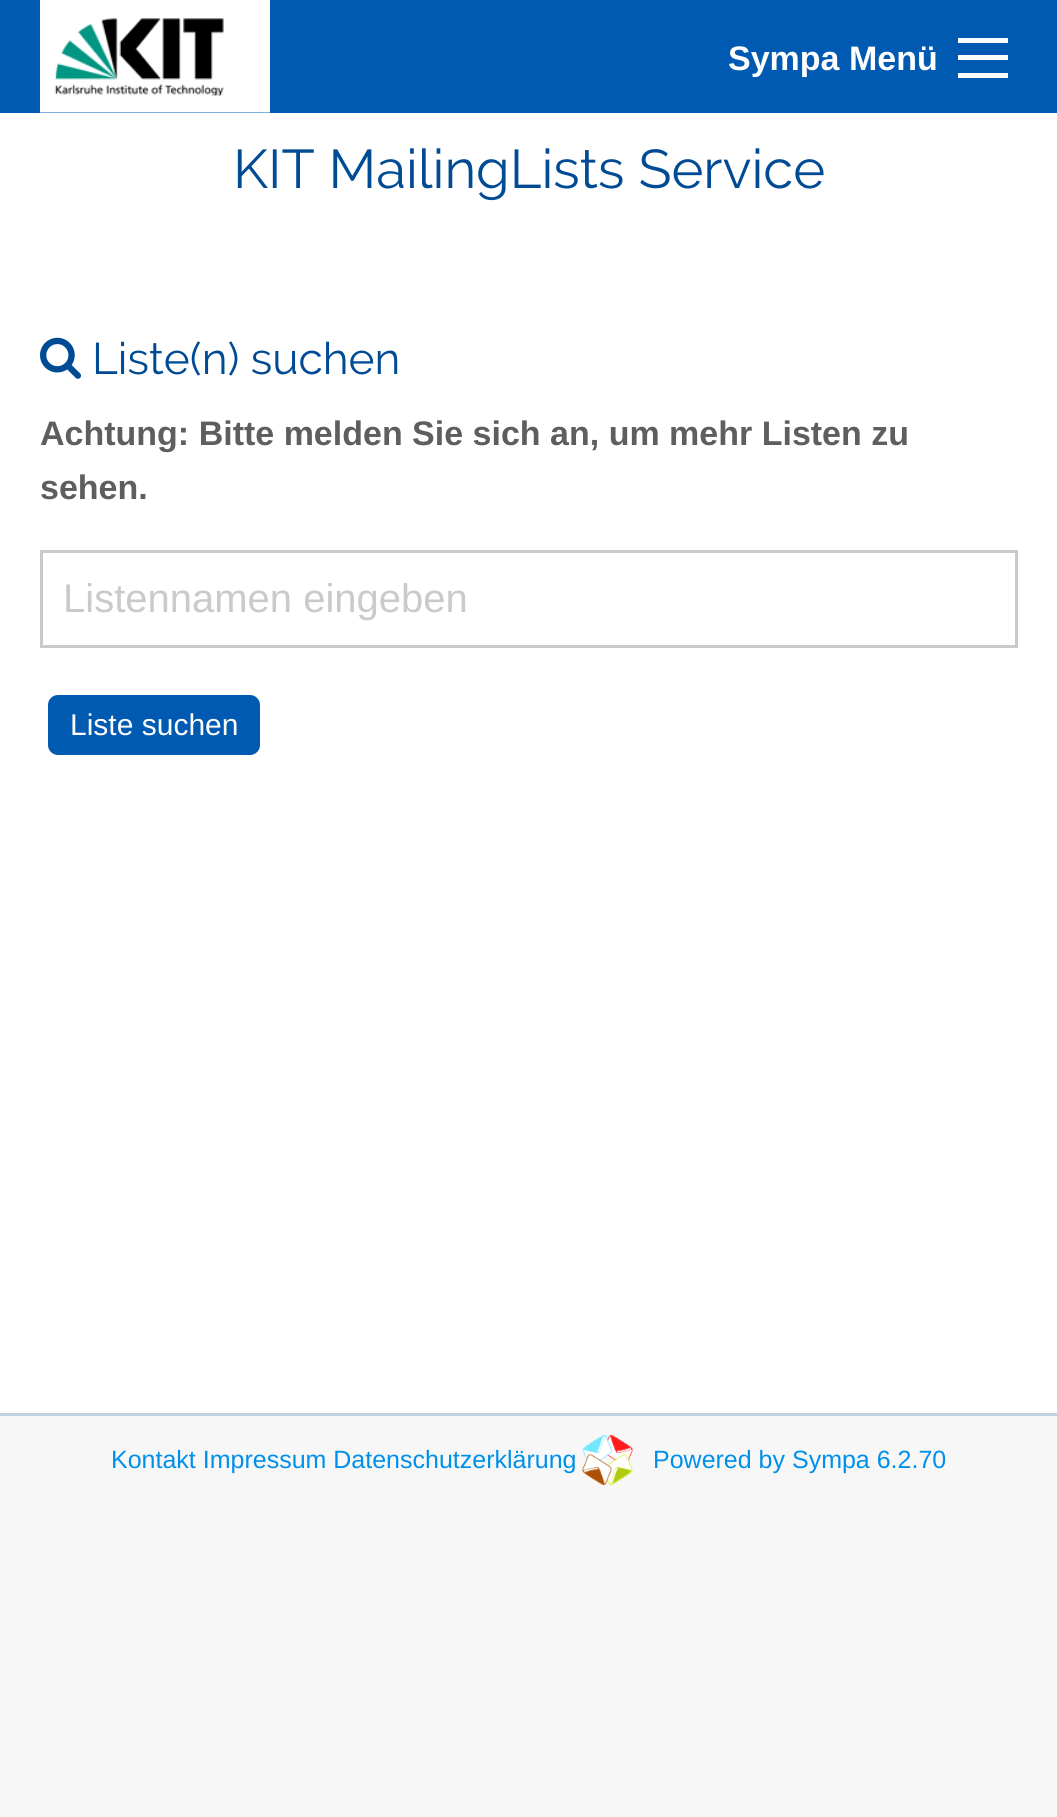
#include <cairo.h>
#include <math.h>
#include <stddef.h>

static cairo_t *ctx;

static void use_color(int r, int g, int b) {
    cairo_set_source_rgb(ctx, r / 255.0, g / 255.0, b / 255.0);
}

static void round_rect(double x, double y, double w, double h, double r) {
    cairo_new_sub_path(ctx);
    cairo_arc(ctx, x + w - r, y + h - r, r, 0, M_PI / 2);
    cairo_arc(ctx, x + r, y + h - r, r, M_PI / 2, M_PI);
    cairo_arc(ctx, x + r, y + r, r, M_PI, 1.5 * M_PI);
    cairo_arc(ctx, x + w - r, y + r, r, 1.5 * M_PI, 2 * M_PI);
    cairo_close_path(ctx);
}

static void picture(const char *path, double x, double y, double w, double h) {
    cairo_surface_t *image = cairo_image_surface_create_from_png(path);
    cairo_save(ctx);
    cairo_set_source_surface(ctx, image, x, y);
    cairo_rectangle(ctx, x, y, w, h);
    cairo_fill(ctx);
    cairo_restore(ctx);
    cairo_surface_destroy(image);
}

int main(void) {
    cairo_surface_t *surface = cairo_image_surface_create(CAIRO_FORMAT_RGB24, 1057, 1817);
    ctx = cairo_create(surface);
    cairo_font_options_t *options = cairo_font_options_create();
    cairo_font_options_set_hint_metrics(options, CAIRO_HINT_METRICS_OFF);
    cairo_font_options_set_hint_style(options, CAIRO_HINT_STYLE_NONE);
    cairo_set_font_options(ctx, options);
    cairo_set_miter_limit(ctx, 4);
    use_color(247, 247, 247);
    cairo_paint(ctx);
    use_color(0, 90, 178);
    cairo_rectangle(ctx, 0, 0, 1057, 113);
    cairo_fill(ctx);
    picture("img1.png", 40, 0, 230, 113);
    cairo_select_font_face(ctx, "Liberation Sans", CAIRO_FONT_SLANT_NORMAL, CAIRO_FONT_WEIGHT_BOLD);
    cairo_set_font_size(ctx, 34);
    use_color(254, 254, 254);
    cairo_move_to(ctx, 728, 70);
    cairo_show_text(ctx, "Sympa Menü");
    cairo_rectangle(ctx, 958, 73, 50, 5);
    cairo_fill(ctx);
    cairo_rectangle(ctx, 958, 55, 50, 5);
    cairo_fill(ctx);
    cairo_rectangle(ctx, 958, 38, 50, 5);
    cairo_fill(ctx);
    use_color(255, 255, 255);
    cairo_rectangle(ctx, 0, 113, 1057, 1300);
    cairo_fill(ctx);
    cairo_select_font_face(ctx, "Raleway", CAIRO_FONT_SLANT_NORMAL, CAIRO_FONT_WEIGHT_NORMAL);
    cairo_set_font_size(ctx, 54.4);
    use_color(0, 75, 148);
    cairo_move_to(ctx, 233, 188);
    cairo_show_text(ctx, "KIT MailingLists Service");
    picture("img2.png", 40, 337, 41, 42);
    cairo_set_font_size(ctx, 44.25);
    cairo_move_to(ctx, 92, 374);
    cairo_show_text(ctx, "Liste(n) suchen");
    cairo_select_font_face(ctx, "Liberation Sans", CAIRO_FONT_SLANT_NORMAL, CAIRO_FONT_WEIGHT_BOLD);
    cairo_set_font_size(ctx, 34);
    use_color(94, 94, 94);
    cairo_move_to(ctx, 40, 445);
    cairo_show_text(ctx, "Achtung: Bitte melden Sie sich an, um mehr Listen zu");
    cairo_move_to(ctx, 40, 499);
    cairo_show_text(ctx, "sehen.");
    cairo_rectangle(ctx, 41.5, 551.5, 975, 95);
    use_color(202, 202, 202);
    cairo_set_line_width(ctx, 3);
    cairo_stroke(ctx);
    cairo_select_font_face(ctx, "Liberation Sans", CAIRO_FONT_SLANT_NORMAL, CAIRO_FONT_WEIGHT_NORMAL);
    cairo_set_font_size(ctx, 40);
    cairo_move_to(ctx, 63, 612);
    cairo_show_text(ctx, "Listennamen eingeben");
    use_color(0, 90, 178);
    round_rect(48, 695, 212, 60, 10);
    cairo_fill(ctx);
    cairo_set_font_size(ctx, 30);
    use_color(254, 254, 254);
    cairo_move_to(ctx, 70, 735);
    cairo_show_text(ctx, "Liste suchen");
    use_color(191, 210, 225);
    cairo_rectangle(ctx, 0, 1413, 1057, 3);
    cairo_fill(ctx);
    cairo_set_font_size(ctx, 25);
    use_color(0, 144, 233);
    cairo_move_to(ctx, 111, 1468);
    cairo_show_text(ctx, "Kontakt Impressum Datenschutzerklärung");
    picture("img3.png", 582, 1435, 51, 50);
    cairo_move_to(ctx, 653, 1468);
    cairo_show_text(ctx, "Powered by Sympa 6.2.70");
    cairo_surface_write_to_png(surface, "result.png");
    cairo_font_options_destroy(options);
    cairo_destroy(ctx);
    cairo_surface_destroy(surface);
    return 0;
}
